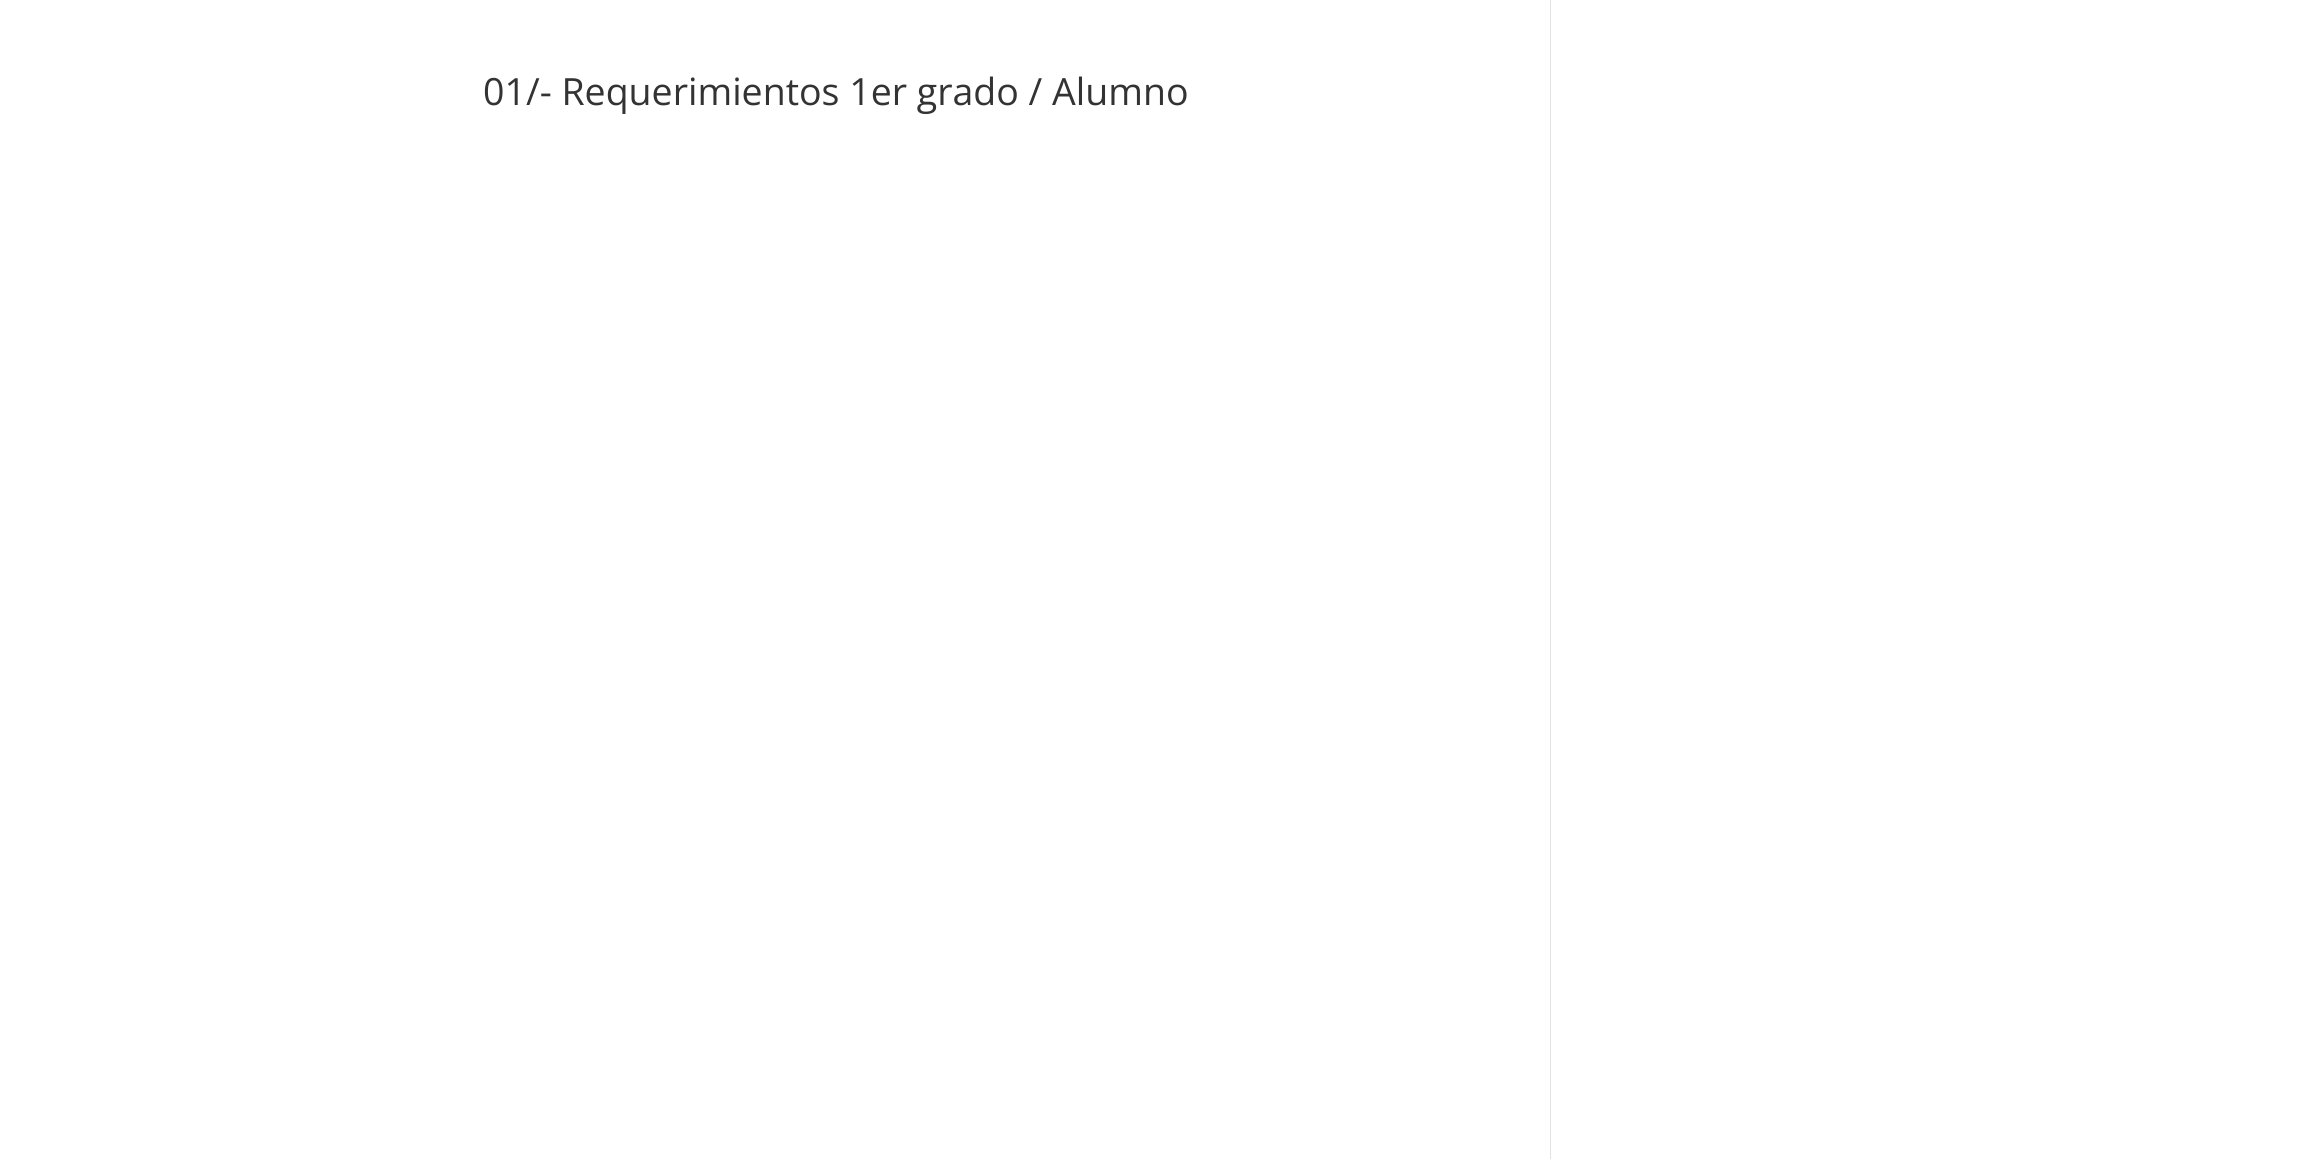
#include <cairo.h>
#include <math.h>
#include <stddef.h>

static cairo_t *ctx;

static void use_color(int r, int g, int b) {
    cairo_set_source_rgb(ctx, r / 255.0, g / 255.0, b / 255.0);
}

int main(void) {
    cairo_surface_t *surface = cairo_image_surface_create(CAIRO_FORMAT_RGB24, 2315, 1159);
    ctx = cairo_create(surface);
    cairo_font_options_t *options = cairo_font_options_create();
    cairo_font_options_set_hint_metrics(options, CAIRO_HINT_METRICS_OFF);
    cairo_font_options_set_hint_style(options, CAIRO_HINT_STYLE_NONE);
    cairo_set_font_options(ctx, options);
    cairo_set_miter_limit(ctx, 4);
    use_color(255, 255, 255);
    cairo_paint(ctx);
    cairo_select_font_face(ctx, "Open Sans", CAIRO_FONT_SLANT_NORMAL, CAIRO_FONT_WEIGHT_NORMAL);
    cairo_set_font_size(ctx, 37.5);
    use_color(51, 51, 51);
    cairo_move_to(ctx, 483, 105);
    cairo_show_text(ctx, "01/- Requerimientos 1er grado / Alumno");
    use_color(226, 226, 226);
    cairo_rectangle(ctx, 1550, 0, 1, 1159);
    cairo_fill(ctx);
    cairo_surface_write_to_png(surface, "result.png");
    cairo_font_options_destroy(options);
    cairo_destroy(ctx);
    cairo_surface_destroy(surface);
    return 0;
}
